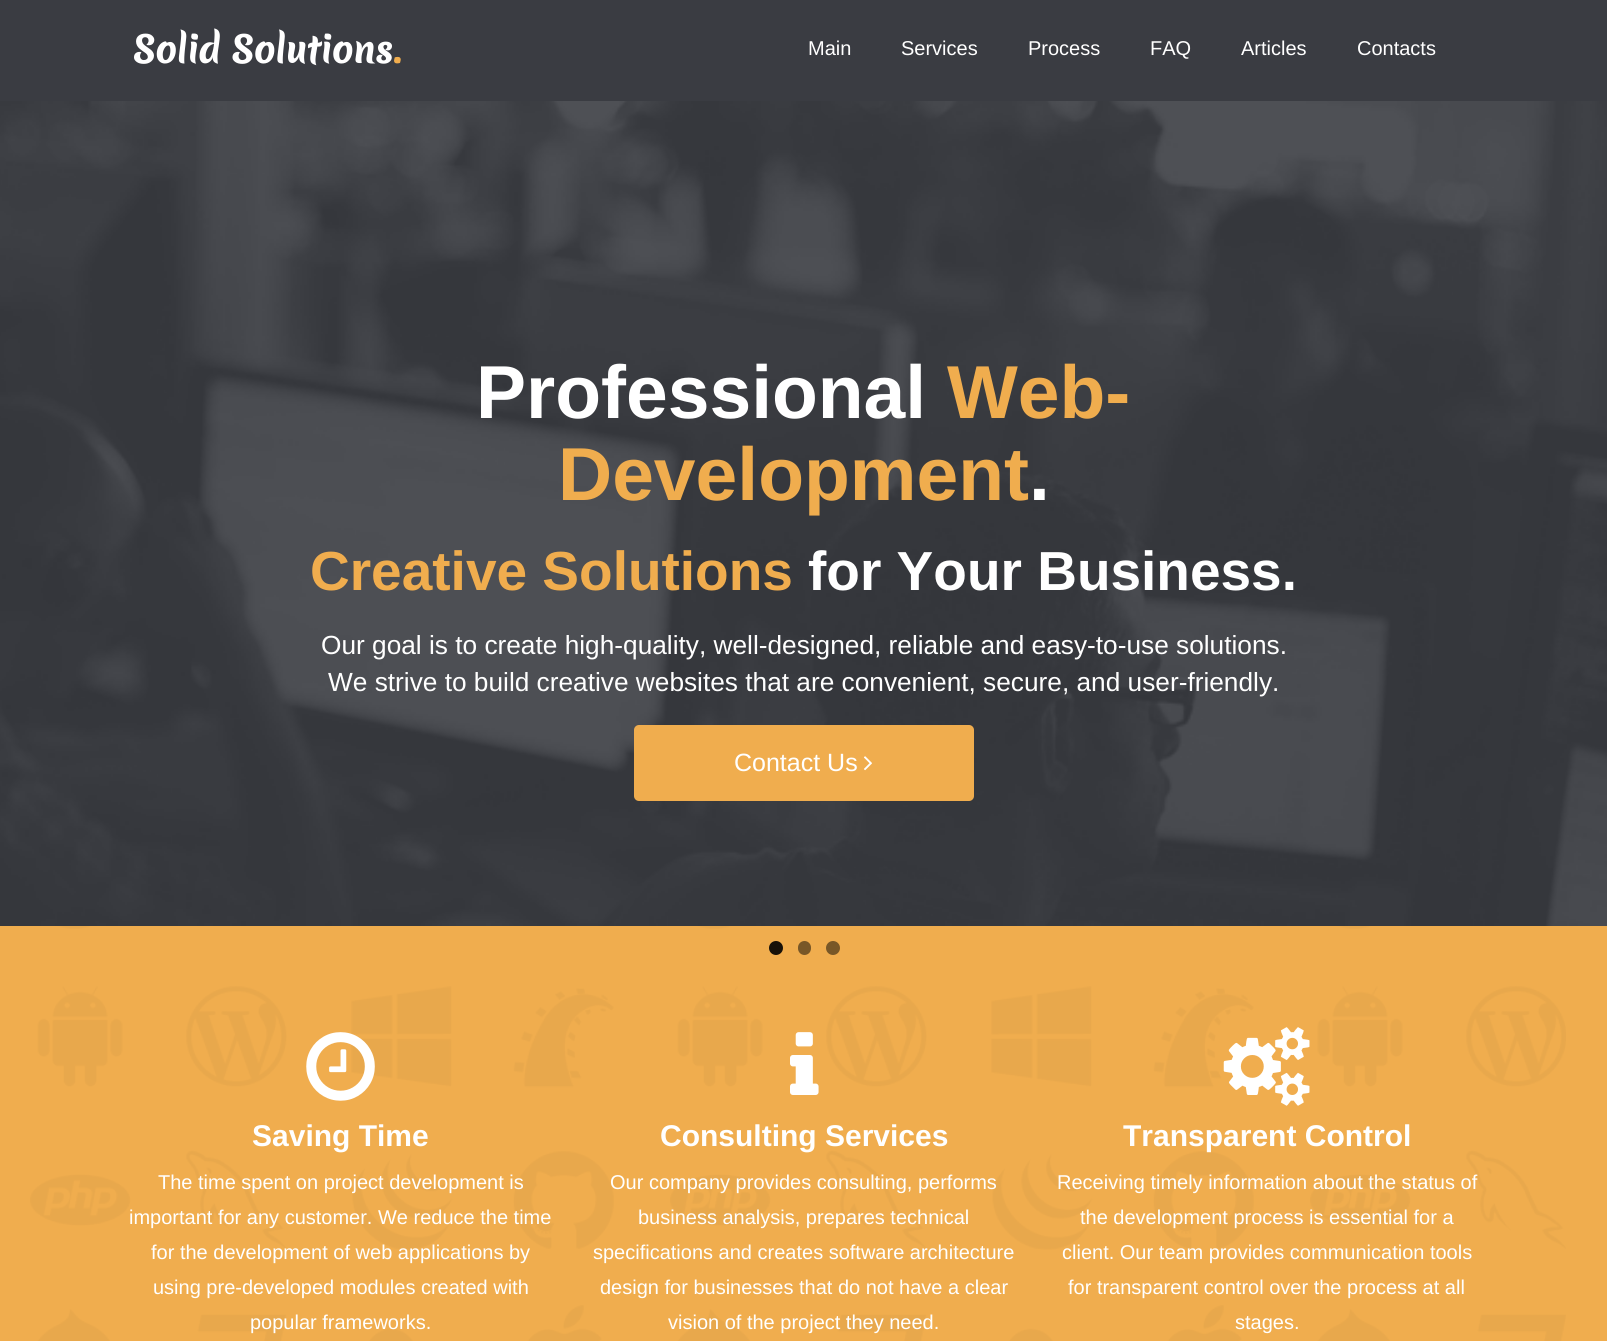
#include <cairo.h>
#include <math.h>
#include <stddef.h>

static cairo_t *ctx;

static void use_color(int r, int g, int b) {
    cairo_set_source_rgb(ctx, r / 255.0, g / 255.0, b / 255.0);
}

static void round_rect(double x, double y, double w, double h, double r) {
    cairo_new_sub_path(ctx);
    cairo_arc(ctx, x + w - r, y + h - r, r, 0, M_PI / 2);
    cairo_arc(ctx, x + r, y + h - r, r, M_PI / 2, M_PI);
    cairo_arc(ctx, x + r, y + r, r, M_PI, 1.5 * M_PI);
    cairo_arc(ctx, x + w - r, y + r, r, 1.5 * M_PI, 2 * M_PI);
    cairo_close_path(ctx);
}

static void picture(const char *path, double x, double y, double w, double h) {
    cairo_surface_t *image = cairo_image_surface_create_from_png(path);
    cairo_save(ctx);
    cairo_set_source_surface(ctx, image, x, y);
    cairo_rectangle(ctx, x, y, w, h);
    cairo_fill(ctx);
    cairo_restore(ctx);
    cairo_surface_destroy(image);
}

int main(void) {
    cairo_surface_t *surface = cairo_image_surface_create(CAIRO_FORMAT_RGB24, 1607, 1341);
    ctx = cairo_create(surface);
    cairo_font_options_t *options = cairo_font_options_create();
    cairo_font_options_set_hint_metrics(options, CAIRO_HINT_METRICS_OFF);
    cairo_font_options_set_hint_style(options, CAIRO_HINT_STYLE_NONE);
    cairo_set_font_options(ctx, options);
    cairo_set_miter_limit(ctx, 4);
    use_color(58, 60, 66);
    cairo_paint(ctx);
    cairo_select_font_face(ctx, "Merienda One", CAIRO_FONT_SLANT_NORMAL, CAIRO_FONT_WEIGHT_BOLD);
    cairo_set_font_size(ctx, 35);
    use_color(255, 255, 255);
    cairo_move_to(ctx, 133, 63);
    cairo_show_text(ctx, "Solid Solutions");
    use_color(240, 173, 78);
    cairo_move_to(ctx, 393, 63);
    cairo_show_text(ctx, ".");
    cairo_select_font_face(ctx, "Liberation Sans", CAIRO_FONT_SLANT_NORMAL, CAIRO_FONT_WEIGHT_NORMAL);
    cairo_set_font_size(ctx, 20);
    use_color(255, 255, 255);
    cairo_move_to(ctx, 808, 55);
    cairo_show_text(ctx, "Main");
    cairo_move_to(ctx, 901, 55);
    cairo_show_text(ctx, "Services");
    cairo_move_to(ctx, 1028, 55);
    cairo_show_text(ctx, "Process");
    cairo_move_to(ctx, 1150, 55);
    cairo_show_text(ctx, "FAQ");
    cairo_move_to(ctx, 1241, 55);
    cairo_show_text(ctx, "Articles");
    cairo_move_to(ctx, 1357, 55);
    cairo_show_text(ctx, "Contacts");
    picture("img6.png", 0, 101, 1607, 825);
    cairo_select_font_face(ctx, "Liberation Sans", CAIRO_FONT_SLANT_NORMAL, CAIRO_FONT_WEIGHT_BOLD);
    cairo_set_font_size(ctx, 75);
    cairo_move_to(ctx, 476, 418);
    cairo_show_text(ctx, "Professional");
    use_color(240, 173, 78);
    cairo_move_to(ctx, 947, 418);
    cairo_show_text(ctx, "Web-");
    cairo_move_to(ctx, 558, 500);
    cairo_show_text(ctx, "Development");
    use_color(255, 255, 255);
    cairo_move_to(ctx, 1029, 500);
    cairo_show_text(ctx, ".");
    cairo_set_font_size(ctx, 55);
    use_color(240, 173, 78);
    cairo_move_to(ctx, 310, 590);
    cairo_show_text(ctx, "Creative Solutions");
    use_color(255, 255, 255);
    cairo_move_to(ctx, 808, 590);
    cairo_show_text(ctx, "for Your Business.");
    cairo_select_font_face(ctx, "Liberation Sans", CAIRO_FONT_SLANT_NORMAL, CAIRO_FONT_WEIGHT_NORMAL);
    cairo_set_font_size(ctx, 26.25);
    cairo_move_to(ctx, 321, 654);
    cairo_show_text(ctx, "Our goal is to create high-quality, well-designed, reliable and easy-to-use solutions.");
    cairo_move_to(ctx, 328, 691);
    cairo_show_text(ctx, "We strive to build creative websites that are convenient, secure, and user-friendly.");
    use_color(240, 173, 78);
    round_rect(634, 725, 340, 76, 5);
    cairo_fill(ctx);
    cairo_set_font_size(ctx, 25);
    use_color(255, 255, 255);
    cairo_move_to(ctx, 734, 771);
    cairo_show_text(ctx, "Contact Us");
    picture("img1.png", 864, 756, 8, 15);
    use_color(240, 173, 78);
    cairo_rectangle(ctx, 0, 926, 1607, 415);
    cairo_fill(ctx);
    picture("img2.png", 30, 926, 1536, 415);
    use_color(24, 17, 8);
    cairo_arc(ctx, 776, 948, 7, 0, 2 * M_PI);
    cairo_fill(ctx);
    use_color(120, 87, 39);
    round_rect(798, 941, 13, 14, 6.5);
    cairo_fill(ctx);
    cairo_arc(ctx, 833, 948, 7, 0, 2 * M_PI);
    cairo_fill(ctx);
    picture("img3.png", 306, 1032, 69, 69);
    cairo_select_font_face(ctx, "Liberation Sans", CAIRO_FONT_SLANT_NORMAL, CAIRO_FONT_WEIGHT_BOLD);
    cairo_set_font_size(ctx, 30);
    use_color(255, 255, 255);
    cairo_move_to(ctx, 252, 1146);
    cairo_show_text(ctx, "Saving Time");
    cairo_select_font_face(ctx, "Liberation Sans", CAIRO_FONT_SLANT_NORMAL, CAIRO_FONT_WEIGHT_NORMAL);
    cairo_set_font_size(ctx, 20);
    cairo_move_to(ctx, 158, 1189);
    cairo_show_text(ctx, "The time spent on project development is");
    cairo_move_to(ctx, 129, 1224);
    cairo_show_text(ctx, "important for any customer. We reduce the time");
    cairo_move_to(ctx, 151, 1259);
    cairo_show_text(ctx, "for the development of web applications by");
    cairo_move_to(ctx, 153, 1294);
    cairo_show_text(ctx, "using pre-developed modules created with");
    cairo_move_to(ctx, 250, 1329);
    cairo_show_text(ctx, "popular frameworks.");
    picture("img4.png", 790, 1032, 29, 63);
    cairo_select_font_face(ctx, "Liberation Sans", CAIRO_FONT_SLANT_NORMAL, CAIRO_FONT_WEIGHT_BOLD);
    cairo_set_font_size(ctx, 30);
    cairo_move_to(ctx, 660, 1146);
    cairo_show_text(ctx, "Consulting Services");
    cairo_select_font_face(ctx, "Liberation Sans", CAIRO_FONT_SLANT_NORMAL, CAIRO_FONT_WEIGHT_NORMAL);
    cairo_set_font_size(ctx, 20);
    cairo_move_to(ctx, 610, 1189);
    cairo_show_text(ctx, "Our company provides consulting, performs");
    cairo_move_to(ctx, 638, 1224);
    cairo_show_text(ctx, "business analysis, prepares technical");
    cairo_move_to(ctx, 593, 1259);
    cairo_show_text(ctx, "specifications and creates software architecture");
    cairo_move_to(ctx, 600, 1294);
    cairo_show_text(ctx, "design for businesses that do not have a clear");
    cairo_move_to(ctx, 668, 1329);
    cairo_show_text(ctx, "vision of the project they need.");
    picture("img5.png", 1223, 1027, 87, 79);
    cairo_select_font_face(ctx, "Liberation Sans", CAIRO_FONT_SLANT_NORMAL, CAIRO_FONT_WEIGHT_BOLD);
    cairo_set_font_size(ctx, 30);
    cairo_move_to(ctx, 1123, 1146);
    cairo_show_text(ctx, "Transparent Control");
    cairo_select_font_face(ctx, "Liberation Sans", CAIRO_FONT_SLANT_NORMAL, CAIRO_FONT_WEIGHT_NORMAL);
    cairo_set_font_size(ctx, 20);
    cairo_move_to(ctx, 1057, 1189);
    cairo_show_text(ctx, "Receiving timely information about the status of");
    cairo_move_to(ctx, 1080, 1224);
    cairo_show_text(ctx, "the development process is essential for a");
    cairo_move_to(ctx, 1062, 1259);
    cairo_show_text(ctx, "client. Our team provides communication tools");
    cairo_move_to(ctx, 1068, 1294);
    cairo_show_text(ctx, "for transparent control over the process at all");
    cairo_move_to(ctx, 1235, 1329);
    cairo_show_text(ctx, "stages.");
    cairo_surface_write_to_png(surface, "result.png");
    cairo_font_options_destroy(options);
    cairo_destroy(ctx);
    cairo_surface_destroy(surface);
    return 0;
}
